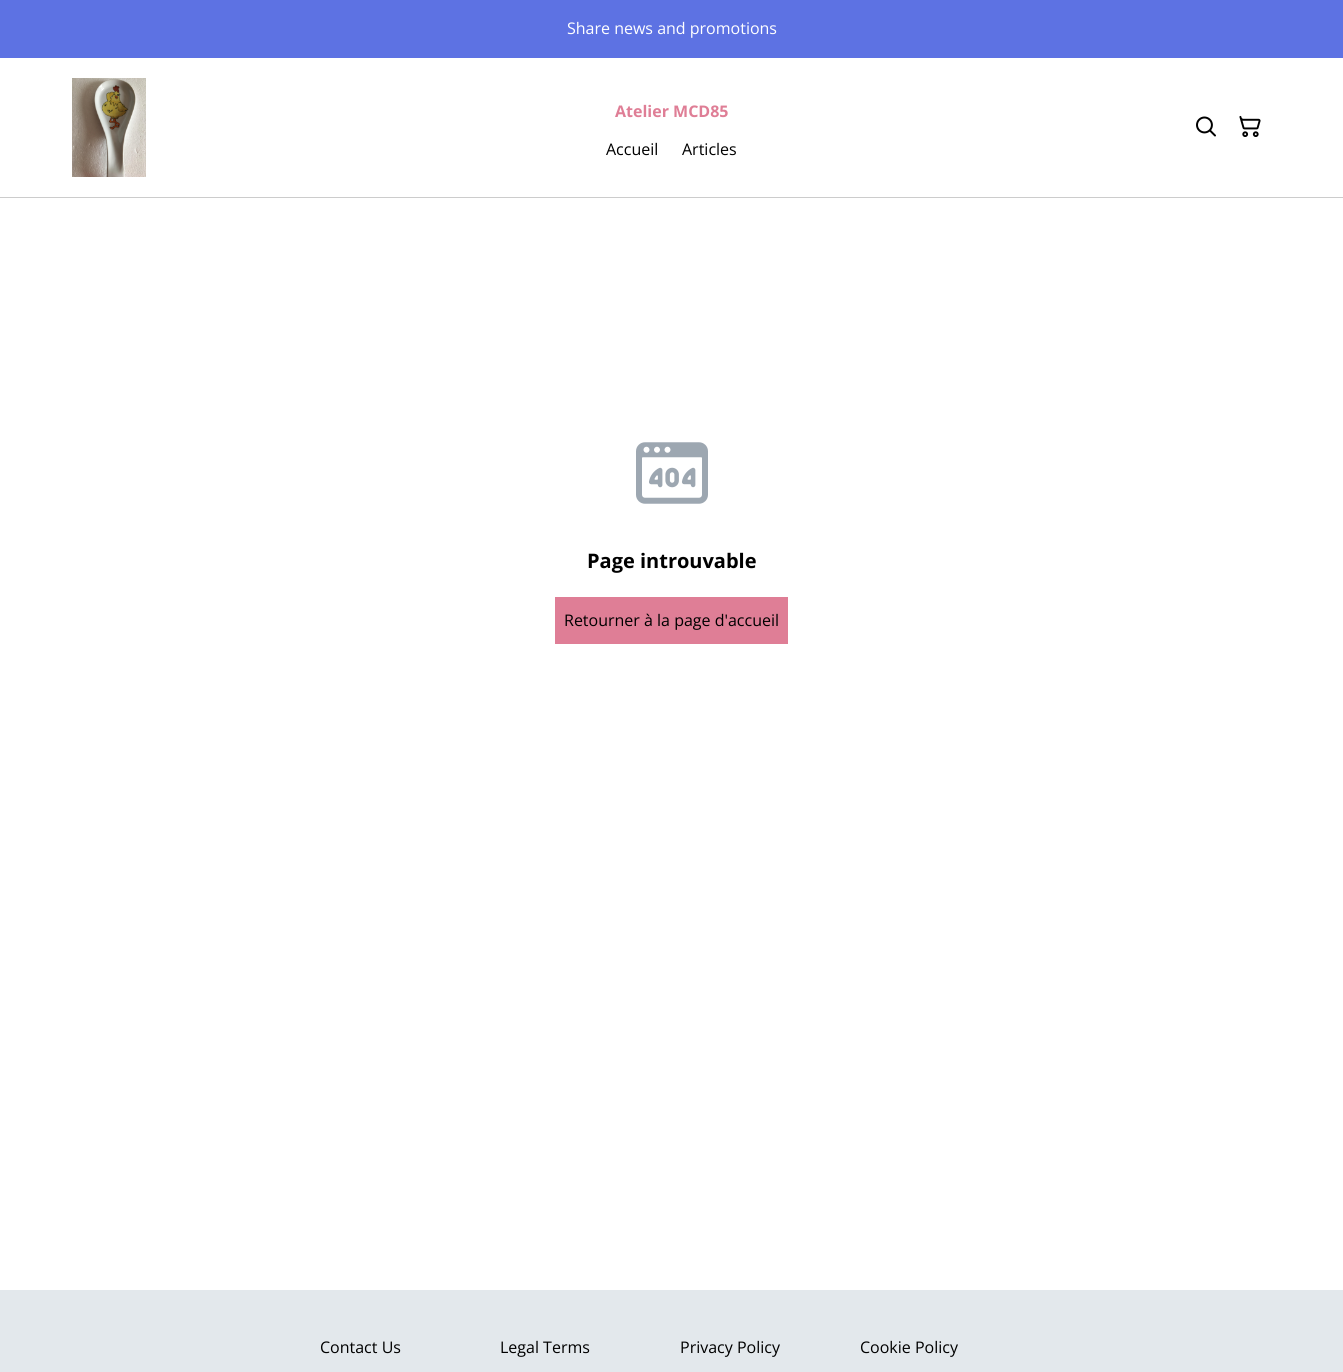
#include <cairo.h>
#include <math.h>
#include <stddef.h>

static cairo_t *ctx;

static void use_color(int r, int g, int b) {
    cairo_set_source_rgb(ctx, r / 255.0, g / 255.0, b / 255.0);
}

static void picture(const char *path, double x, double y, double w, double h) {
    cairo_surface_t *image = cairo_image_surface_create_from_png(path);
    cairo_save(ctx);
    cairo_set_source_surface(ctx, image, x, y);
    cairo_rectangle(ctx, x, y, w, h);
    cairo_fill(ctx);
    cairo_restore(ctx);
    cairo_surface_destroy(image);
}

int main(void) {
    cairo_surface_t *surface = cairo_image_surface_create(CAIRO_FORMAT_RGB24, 1343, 1372);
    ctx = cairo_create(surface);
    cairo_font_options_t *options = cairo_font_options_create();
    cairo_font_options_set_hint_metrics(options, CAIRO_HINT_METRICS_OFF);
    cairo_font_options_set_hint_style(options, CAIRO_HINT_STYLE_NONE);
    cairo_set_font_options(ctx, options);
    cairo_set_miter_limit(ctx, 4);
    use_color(255, 255, 255);
    cairo_paint(ctx);
    use_color(93, 114, 227);
    cairo_rectangle(ctx, 0, 0, 1343, 58);
    cairo_fill(ctx);
    cairo_select_font_face(ctx, "Open Sans", CAIRO_FONT_SLANT_NORMAL, CAIRO_FONT_WEIGHT_NORMAL);
    cairo_set_font_size(ctx, 16);
    use_color(255, 255, 255);
    cairo_move_to(ctx, 567, 34);
    cairo_show_text(ctx, "Share news and promotions");
    use_color(204, 204, 204);
    cairo_rectangle(ctx, 0, 197, 1343, 1);
    cairo_fill(ctx);
    picture("img1.png", 72, 78, 74, 99);
    cairo_select_font_face(ctx, "Open Sans", CAIRO_FONT_SLANT_NORMAL, CAIRO_FONT_WEIGHT_BOLD);
    use_color(223, 126, 150);
    cairo_move_to(ctx, 615, 117);
    cairo_show_text(ctx, "Atelier MCD85");
    cairo_select_font_face(ctx, "Open Sans", CAIRO_FONT_SLANT_NORMAL, CAIRO_FONT_WEIGHT_NORMAL);
    use_color(0, 0, 0);
    cairo_move_to(ctx, 606, 155);
    cairo_show_text(ctx, "Accueil");
    cairo_move_to(ctx, 682, 155);
    cairo_show_text(ctx, "Articles");
    picture("img2.png", 1196, 116, 20, 21);
    picture("img3.png", 1239, 115, 22, 22);
    picture("img4.png", 636, 442, 72, 62);
    cairo_select_font_face(ctx, "Open Sans", CAIRO_FONT_SLANT_NORMAL, CAIRO_FONT_WEIGHT_BOLD);
    cairo_set_font_size(ctx, 20);
    cairo_move_to(ctx, 587, 568);
    cairo_show_text(ctx, "Page introuvable");
    use_color(223, 126, 150);
    cairo_rectangle(ctx, 555, 597, 233, 47);
    cairo_fill(ctx);
    cairo_select_font_face(ctx, "Open Sans", CAIRO_FONT_SLANT_NORMAL, CAIRO_FONT_WEIGHT_NORMAL);
    cairo_set_font_size(ctx, 16);
    use_color(0, 0, 0);
    cairo_move_to(ctx, 564, 626);
    cairo_show_text(ctx, "Retourner à la page d'accueil");
    use_color(227, 232, 236);
    cairo_rectangle(ctx, 0, 1290, 1343, 82);
    cairo_fill(ctx);
    use_color(0, 0, 0);
    cairo_move_to(ctx, 320, 1353);
    cairo_show_text(ctx, "Contact Us");
    cairo_move_to(ctx, 500, 1353);
    cairo_show_text(ctx, "Legal Terms");
    cairo_move_to(ctx, 680, 1353);
    cairo_show_text(ctx, "Privacy Policy");
    cairo_move_to(ctx, 860, 1353);
    cairo_show_text(ctx, "Cookie Policy");
    cairo_surface_write_to_png(surface, "result.png");
    cairo_font_options_destroy(options);
    cairo_destroy(ctx);
    cairo_surface_destroy(surface);
    return 0;
}
